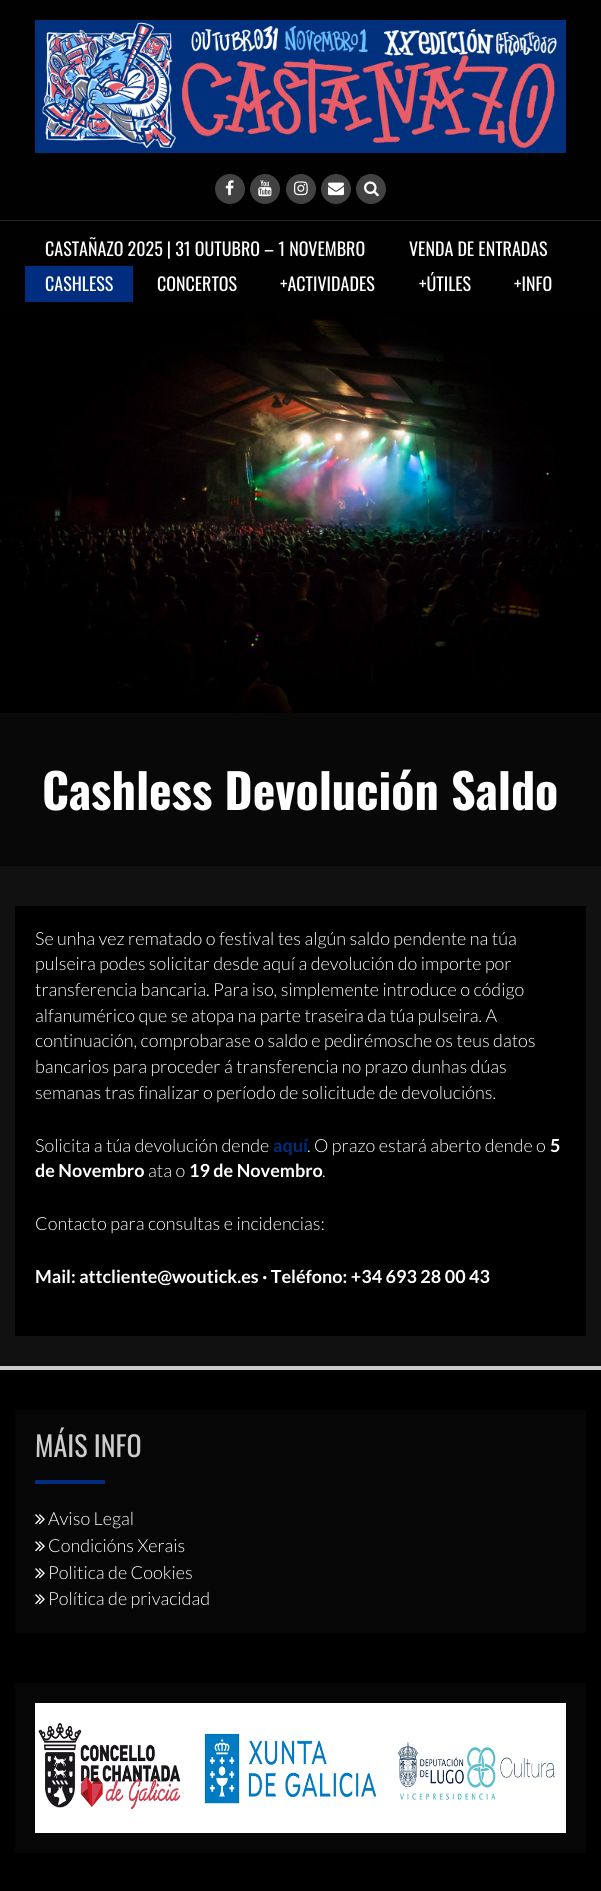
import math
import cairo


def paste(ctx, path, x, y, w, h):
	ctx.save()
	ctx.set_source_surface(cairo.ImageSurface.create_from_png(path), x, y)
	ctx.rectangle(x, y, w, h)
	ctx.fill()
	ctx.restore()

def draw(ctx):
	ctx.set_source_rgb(0.067, 0.067, 0.067)
	ctx.paint()
	ctx.set_source_rgb(0.004, 0.004, 0.004)
	ctx.rectangle(0, 0, 601, 312)
	ctx.fill()
	ctx.set_source_rgb(0.145, 0.145, 0.145)
	ctx.rectangle(0, 220, 601, 1)
	ctx.fill()
	paste(ctx, 'media/1.png', 35, 20, 531, 133)
	ctx.set_source_rgb(0.259, 0.259, 0.259)
	ctx.arc(230, 189, 15, 0, 2 * math.pi)
	ctx.fill()
	paste(ctx, 'media/2.png', 225, 180, 9, 16)
	ctx.arc(265, 189, 15, 0, 2 * math.pi)
	ctx.fill()
	paste(ctx, 'media/3.png', 258, 180, 14, 17)
	ctx.arc(301, 189, 15, 0, 2 * math.pi)
	ctx.fill()
	paste(ctx, 'media/4.png', 294, 181, 14, 15)
	ctx.arc(336, 189, 15, 0, 2 * math.pi)
	ctx.fill()
	paste(ctx, 'media/5.png', 328, 182, 16, 14)
	ctx.arc(371, 189, 15, 0, 2 * math.pi)
	ctx.fill()
	paste(ctx, 'media/6.png', 364, 181, 15, 16)
	ctx.select_font_face('Oswald')
	ctx.set_font_size(18)
	ctx.set_source_rgb(1, 1, 1)
	ctx.move_to(45, 256)
	ctx.show_text('CASTAÑAZO 2025 | 31 OUTUBRO – 1 NOVEMBRO')
	ctx.move_to(409, 256)
	ctx.show_text('VENDA DE ENTRADAS')
	ctx.set_source_rgb(0, 0.176, 0.502)
	ctx.rectangle(25, 266, 108, 36)
	ctx.fill()
	ctx.set_source_rgb(1, 1, 1)
	for x, y, s in [
		(45, 291, 'CASHLESS'),
		(157, 291, 'CONCERTOS'),
		(280, 291, '+ACTIVIDADES'),
		(419, 291, '+ÚTILES'),
		(514, 291, '+INFO'),
	]:
		ctx.move_to(x, y)
		ctx.show_text(s)
	paste(ctx, 'media/7.png', 0, 312, 601, 401)
	ctx.set_source_rgb(0.035, 0.035, 0.035)
	ctx.rectangle(0, 713, 601, 153)
	ctx.fill()
	ctx.select_font_face('Oswald', cairo.FONT_SLANT_NORMAL, cairo.FONT_WEIGHT_BOLD)
	ctx.set_font_size(48)
	ctx.set_source_rgb(1, 1, 1)
	ctx.move_to(42, 810)
	ctx.show_text('Cashless Devolución Saldo')
	ctx.set_source_rgb(0, 0, 0)
	ctx.rectangle(15, 906, 571, 430)
	ctx.fill()
	ctx.select_font_face('Lato Light')
	ctx.set_font_size(18)
	ctx.set_source_rgb(1, 1, 1)
	for x, y, s in [
		(35, 945, 'Se unha vez rematado o festival tes algún saldo pendente na túa'),
		(35, 970, 'pulseira podes solicitar desde aquí a devolución do importe por'),
		(35, 996, 'transferencia bancaria. Para iso, simplemente introduce o código'),
		(35, 1022, 'alfanumérico que se atopa na parte traseira da túa pulseira. A'),
		(35, 1047, 'continuación, comprobarase o saldo e pedirémosche os teus datos'),
		(35, 1073, 'bancarios para proceder á transferencia no prazo dunhas dúas'),
		(35, 1099, 'semanas tras finalizar o período de solicitude de devolucións.'),
		(35, 1152, 'Solicita a túa devolución dende'),
	]:
		ctx.move_to(x, y)
		ctx.show_text(s)
	ctx.select_font_face('Lato', cairo.FONT_SLANT_NORMAL, cairo.FONT_WEIGHT_BOLD)
	ctx.set_source_rgb(0, 0.176, 0.502)
	ctx.move_to(273, 1152)
	ctx.show_text('aquí')
	ctx.select_font_face('Lato Light')
	ctx.set_source_rgb(1, 1, 1)
	ctx.move_to(307, 1152)
	ctx.show_text('. O prazo estará aberto dende o')
	ctx.select_font_face('Lato', cairo.FONT_SLANT_NORMAL, cairo.FONT_WEIGHT_BOLD)
	ctx.move_to(550, 1152)
	ctx.show_text('5')
	ctx.move_to(35, 1177)
	ctx.show_text('de Novembro')
	ctx.select_font_face('Lato Light')
	ctx.move_to(148, 1177)
	ctx.show_text('ata o')
	ctx.select_font_face('Lato', cairo.FONT_SLANT_NORMAL, cairo.FONT_WEIGHT_BOLD)
	ctx.move_to(189, 1177)
	ctx.show_text('19 de Novembro')
	ctx.select_font_face('Lato Light')
	ctx.move_to(322, 1177)
	ctx.show_text('.')
	ctx.move_to(35, 1230)
	ctx.show_text('Contacto para consultas e incidencias:')
	ctx.select_font_face('Lato', cairo.FONT_SLANT_NORMAL, cairo.FONT_WEIGHT_BOLD)
	ctx.move_to(35, 1283)
	ctx.show_text('Mail: attcliente@woutick.es · Teléfono: +34 693 28 00 43')
	ctx.set_source_rgb(0, 0, 0)
	ctx.rectangle(0, 1370, 601, 521)
	ctx.fill()
	ctx.set_source_rgb(0.8, 0.8, 0.8)
	ctx.rectangle(0, 1366, 601, 4)
	ctx.fill()
	ctx.set_source_rgb(0.024, 0.024, 0.024)
	ctx.rectangle(15, 1410, 571, 223)
	ctx.fill()
	ctx.select_font_face('Oswald')
	ctx.set_font_size(28)
	ctx.set_source_rgb(0.8, 0.8, 0.8)
	ctx.move_to(35, 1457)
	ctx.show_text('MÁIS INFO')
	ctx.set_source_rgb(0, 0.176, 0.502)
	ctx.rectangle(35, 1480, 70, 4)
	ctx.fill()
	paste(ctx, 'media/8.png', 35, 1514, 10, 11)
	ctx.select_font_face('Lato Light')
	ctx.set_font_size(18)
	ctx.set_source_rgb(1, 1, 1)
	ctx.move_to(48, 1525)
	ctx.show_text('Aviso Legal')
	paste(ctx, 'media/8.png', 35, 1541, 10, 11)
	ctx.move_to(48, 1552)
	ctx.show_text('Condicións Xerais')
	paste(ctx, 'media/8.png', 35, 1568, 10, 11)
	ctx.move_to(48, 1579)
	ctx.show_text('Politica de Cookies')
	paste(ctx, 'media/8.png', 35, 1594, 10, 11)
	ctx.move_to(48, 1605)
	ctx.show_text('Política de privacidad')
	ctx.set_source_rgb(0.024, 0.024, 0.024)
	ctx.rectangle(15, 1683, 571, 170)
	ctx.fill()
	paste(ctx, 'media/9.png', 35, 1703, 531, 130)


surface = cairo.ImageSurface(cairo.FORMAT_RGB24, 601, 1891)
ctx = cairo.Context(surface)
options = cairo.FontOptions()
options.set_hint_metrics(cairo.HINT_METRICS_OFF)
options.set_hint_style(cairo.HINT_STYLE_NONE)
ctx.set_font_options(options)
ctx.set_miter_limit(4)
draw(ctx)
surface.write_to_png('image.png')
